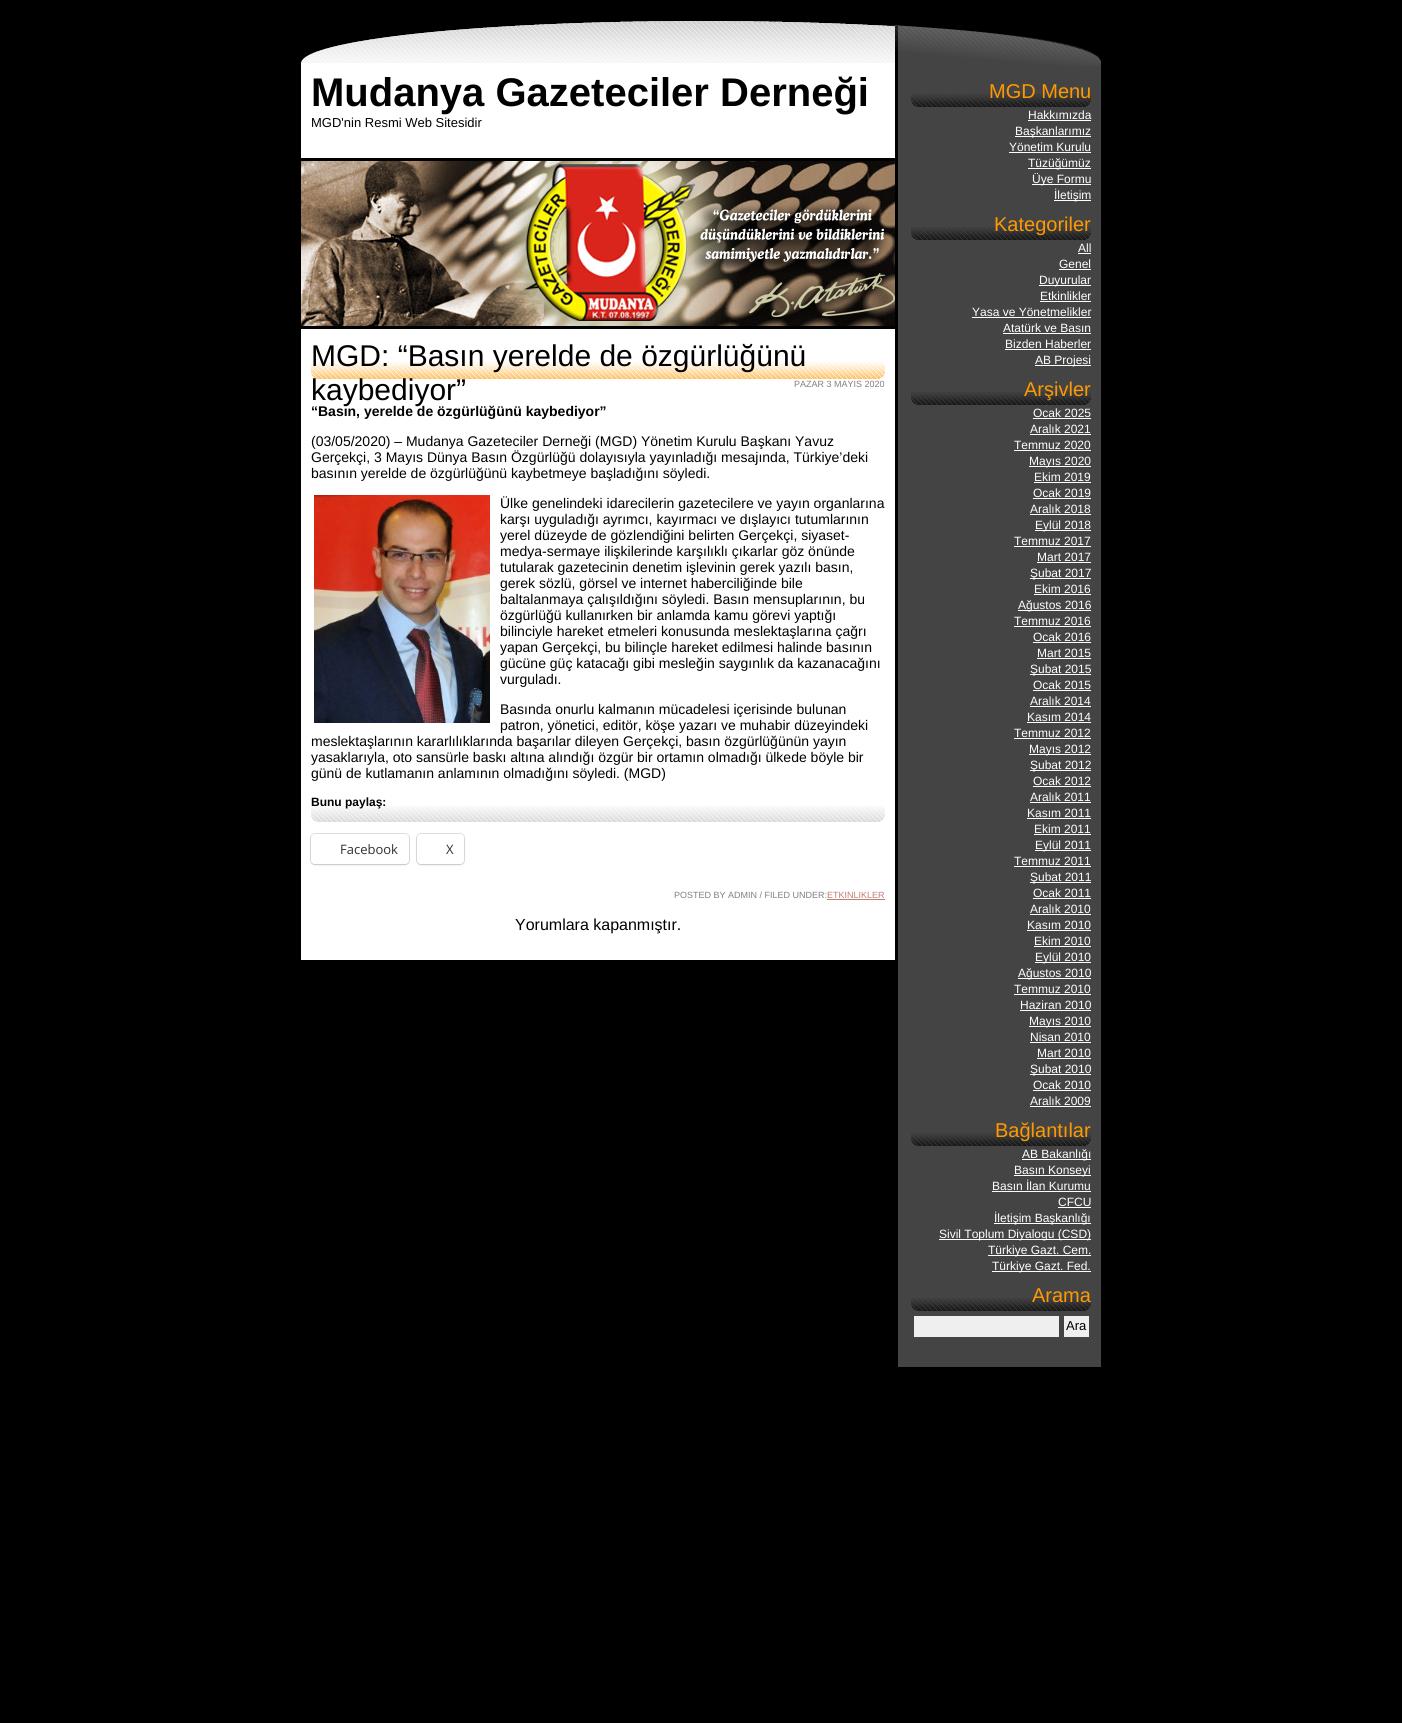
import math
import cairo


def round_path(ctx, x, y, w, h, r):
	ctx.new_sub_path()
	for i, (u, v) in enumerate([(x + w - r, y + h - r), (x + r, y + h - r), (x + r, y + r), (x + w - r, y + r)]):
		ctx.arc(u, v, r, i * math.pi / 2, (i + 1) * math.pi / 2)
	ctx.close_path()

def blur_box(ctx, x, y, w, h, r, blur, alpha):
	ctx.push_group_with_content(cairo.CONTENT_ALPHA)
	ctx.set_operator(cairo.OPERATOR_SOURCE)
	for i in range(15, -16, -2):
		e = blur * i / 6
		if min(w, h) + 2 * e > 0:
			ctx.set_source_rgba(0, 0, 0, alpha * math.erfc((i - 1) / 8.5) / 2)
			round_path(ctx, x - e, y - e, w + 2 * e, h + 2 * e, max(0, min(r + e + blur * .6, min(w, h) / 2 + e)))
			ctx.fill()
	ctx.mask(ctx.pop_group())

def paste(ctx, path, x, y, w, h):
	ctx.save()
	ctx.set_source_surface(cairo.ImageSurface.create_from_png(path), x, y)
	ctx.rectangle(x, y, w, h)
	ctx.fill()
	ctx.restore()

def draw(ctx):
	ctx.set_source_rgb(0, 0, 0)
	ctx.paint()
	paste(ctx, 'media/1.png', 301, 66, 800, 4)
	paste(ctx, 'media/2.png', 301, 20, 800, 46)
	ctx.set_source_rgb(1, 1, 1)
	ctx.rectangle(301, 70, 594, 890)
	ctx.fill()
	ctx.select_font_face('Liberation Sans', cairo.FONT_SLANT_NORMAL, cairo.FONT_WEIGHT_BOLD)
	ctx.set_font_size(40)
	ctx.set_source_rgb(0, 0, 0)
	ctx.move_to(311, 106)
	ctx.show_text('Mudanya Gazeteciler Derneği')
	ctx.select_font_face('Liberation Sans')
	ctx.set_font_size(13)
	ctx.move_to(311, 127)
	ctx.show_text('MGD\'nin Resmi Web Sitesidir')
	paste(ctx, 'media/3.png', 301, 161, 594, 165)
	ctx.rectangle(301, 158, 594, 3)
	ctx.fill()
	ctx.rectangle(301, 326, 594, 3)
	ctx.fill()
	paste(ctx, 'media/4.png', 311, 361, 574, 18)
	ctx.set_font_size(30)
	ctx.move_to(311, 366)
	ctx.show_text('MGD: “Basın yerelde de özgürlüğünü')
	ctx.move_to(311, 400)
	ctx.show_text('kaybediyor”')
	ctx.set_font_size(9)
	ctx.set_source_rgb(0.502, 0.502, 0.502)
	ctx.move_to(794, 387)
	ctx.show_text('PAZAR 3 MAYIS 2020')
	ctx.select_font_face('Liberation Sans', cairo.FONT_SLANT_NORMAL, cairo.FONT_WEIGHT_BOLD)
	ctx.set_font_size(14)
	ctx.set_source_rgb(0, 0, 0)
	ctx.move_to(311, 416)
	ctx.show_text('“Basın, yerelde de özgürlüğünü kaybediyor”')
	ctx.select_font_face('Liberation Sans')
	for x, y, s in [
		(311, 446, '(03/05/2020) – Mudanya Gazeteciler Derneği (MGD) Yönetim Kurulu Başkanı Yavuz'),
		(311, 462, 'Gerçekçi, 3 Mayıs Dünya Basın Özgürlüğü dolayısıyla yayınladığı mesajında, Türkiye’deki'),
		(311, 478, 'basının yerelde de özgürlüğünü kaybetmeye başladığını söyledi.'),
	]:
		ctx.move_to(x, y)
		ctx.show_text(s)
	paste(ctx, 'media/5.png', 314, 495, 176, 228)
	for x, y, s in [
		(500, 508, 'Ülke genelindeki idarecilerin gazetecilere ve yayın organlarına'),
		(500, 524, 'karşı uyguladığı ayrımcı, kayırmacı ve dışlayıcı tutumlarının'),
		(500, 540, 'yerel düzeyde de gözlendiğini belirten Gerçekçi, siyaset-'),
		(500, 556, 'medya-sermaye ilişkilerinde karşılıklı çıkarlar göz önünde'),
		(500, 572, 'tutularak gazetecinin denetim işlevinin gerek yazılı basın,'),
		(500, 588, 'gerek sözlü, görsel ve internet haberciliğinde bile'),
		(500, 604, 'baltalanmaya çalışıldığını söyledi. Basın mensuplarının, bu'),
		(500, 620, 'özgürlüğü kullanırken bir anlamda kamu görevi yaptığı'),
		(500, 636, 'bilinciyle hareket etmeleri konusunda meslektaşlarına çağrı'),
		(500, 652, 'yapan Gerçekçi, bu bilinçle hareket edilmesi halinde basının'),
		(500, 668, 'gücüne güç katacağı gibi mesleğin saygınlık da kazanacağını'),
		(500, 684, 'vurguladı.'),
		(500, 714, 'Basında onurlu kalmanın mücadelesi içerisinde bulunan'),
		(500, 730, 'patron, yönetici, editör, köşe yazarı ve muhabir düzeyindeki'),
		(311, 746, 'meslektaşlarının kararlılıklarında başarılar dileyen Gerçekçi, basın özgürlüğünün yayın'),
		(311, 762, 'yasaklarıyla, oto sansürle baskı altına alındığı özgür bir ortamın olmadığı ülkede böyle bir'),
		(311, 778, 'günü de kutlamanın anlamının olmadığını söyledi. (MGD)'),
	]:
		ctx.move_to(x, y)
		ctx.show_text(s)
	paste(ctx, 'media/6.png', 311, 806, 574, 16)
	ctx.select_font_face('Liberation Sans', cairo.FONT_SLANT_NORMAL, cairo.FONT_WEIGHT_BOLD)
	ctx.set_font_size(12)
	ctx.move_to(311, 806)
	ctx.show_text('Bunu paylaş:')
	round_path(ctx, 310.5, 833.5, 99, 31, 4.5)
	ctx.set_source_rgb(0.878, 0.878, 0.878)
	ctx.set_line_width(1)
	ctx.stroke()
	ctx.set_source_rgb(0, 0, 0)
	blur_box(ctx, 311, 835, 98, 30, 4, 1, 0.12)
	ctx.set_source_rgb(1, 1, 1)
	round_path(ctx, 311, 834, 98, 30, 4)
	ctx.fill()
	ctx.select_font_face('Open Sans')
	ctx.set_font_size(13)
	ctx.set_source_rgb(0.173, 0.2, 0.22)
	ctx.move_to(340, 854)
	ctx.show_text('Facebook')
	round_path(ctx, 416.5, 833.5, 48, 31, 4.5)
	ctx.set_source_rgb(0.878, 0.878, 0.878)
	ctx.stroke()
	ctx.set_source_rgb(0, 0, 0)
	blur_box(ctx, 417, 835, 47, 30, 4, 1, 0.12)
	ctx.set_source_rgb(1, 1, 1)
	round_path(ctx, 417, 834, 47, 30, 4)
	ctx.fill()
	ctx.set_source_rgb(0.173, 0.2, 0.22)
	ctx.move_to(446, 854)
	ctx.show_text('X')
	ctx.select_font_face('Liberation Sans')
	ctx.set_font_size(9)
	ctx.set_source_rgb(0.502, 0.502, 0.502)
	ctx.move_to(674, 898)
	ctx.show_text('POSTED BY ADMIN / FILED UNDER:')
	ctx.set_source_rgb(0.757, 0.482, 0.443)
	ctx.move_to(827, 898)
	ctx.show_text('ETKINLIKLER')
	ctx.rectangle(827, 899, 58, 1)
	ctx.fill()
	ctx.set_font_size(16)
	ctx.set_source_rgb(0, 0, 0)
	ctx.move_to(515, 930)
	ctx.show_text('Yorumlara kapanmıştır.')
	ctx.set_source_rgb(0.267, 0.267, 0.267)
	ctx.rectangle(898, 70, 203, 1297)
	ctx.fill()
	paste(ctx, 'media/7.png', 911, 94, 180, 13)
	ctx.set_font_size(20)
	ctx.set_source_rgb(1, 0.6, 0)
	ctx.move_to(989, 98)
	ctx.show_text('MGD Menu')
	ctx.set_font_size(12)
	ctx.set_source_rgb(1, 1, 1)
	ctx.move_to(1028, 119)
	ctx.show_text('Hakkımızda')
	ctx.rectangle(1028, 120, 63, 1)
	ctx.fill()
	ctx.rectangle(1015, 136, 76, 1)
	ctx.fill()
	ctx.move_to(1015, 135)
	ctx.show_text('Başkanlarımız')
	ctx.move_to(1009, 151)
	ctx.show_text('Yönetim Kurulu')
	ctx.rectangle(1009, 152, 82, 1)
	ctx.fill()
	ctx.rectangle(1028, 168, 63, 1)
	ctx.fill()
	ctx.move_to(1028, 167)
	ctx.show_text('Tüzüğümüz')
	ctx.rectangle(1032, 184, 59, 1)
	ctx.fill()
	ctx.move_to(1032, 183)
	ctx.show_text('Üye Formu')
	ctx.rectangle(1054, 200, 37, 1)
	ctx.fill()
	ctx.move_to(1054, 199)
	ctx.show_text('İletişim')
	paste(ctx, 'media/7.png', 911, 227, 180, 13)
	ctx.set_font_size(20)
	ctx.set_source_rgb(1, 0.6, 0)
	ctx.move_to(994, 231)
	ctx.show_text('Kategoriler')
	ctx.set_font_size(12)
	ctx.set_source_rgb(1, 1, 1)
	ctx.move_to(1078, 252)
	ctx.show_text('All')
	ctx.rectangle(1078, 253, 13, 1)
	ctx.fill()
	ctx.move_to(1059, 268)
	ctx.show_text('Genel')
	ctx.rectangle(1059, 269, 32, 1)
	ctx.fill()
	ctx.rectangle(1039, 285, 52, 1)
	ctx.fill()
	ctx.move_to(1039, 284)
	ctx.show_text('Duyurular')
	ctx.move_to(1040, 300)
	ctx.show_text('Etkinlikler')
	ctx.rectangle(1040, 301, 51, 1)
	ctx.fill()
	ctx.move_to(972, 316)
	ctx.show_text('Yasa ve Yönetmelikler')
	ctx.rectangle(972, 317, 119, 1)
	ctx.fill()
	ctx.move_to(1003, 332)
	ctx.show_text('Atatürk ve Basın')
	ctx.rectangle(1003, 333, 88, 1)
	ctx.fill()
	ctx.move_to(1005, 348)
	ctx.show_text('Bizden Haberler')
	ctx.rectangle(1005, 349, 86, 1)
	ctx.fill()
	ctx.rectangle(1035, 365, 56, 1)
	ctx.fill()
	ctx.move_to(1035, 364)
	ctx.show_text('AB Projesi')
	paste(ctx, 'media/7.png', 911, 392, 180, 13)
	ctx.set_font_size(20)
	ctx.set_source_rgb(1, 0.6, 0)
	ctx.move_to(1024, 396)
	ctx.show_text('Arşivler')
	ctx.set_font_size(12)
	ctx.set_source_rgb(1, 1, 1)
	ctx.move_to(1033, 417)
	ctx.show_text('Ocak 2025')
	ctx.rectangle(1033, 418, 58, 1)
	ctx.fill()
	ctx.move_to(1030, 433)
	ctx.show_text('Aralık 2021')
	ctx.rectangle(1030, 434, 61, 1)
	ctx.fill()
	ctx.move_to(1014, 449)
	ctx.show_text('Temmuz 2020')
	ctx.rectangle(1014, 450, 77, 1)
	ctx.fill()
	ctx.rectangle(1029, 466, 62, 1)
	ctx.fill()
	ctx.move_to(1029, 465)
	ctx.show_text('Mayıs 2020')
	ctx.move_to(1034, 481)
	ctx.show_text('Ekim 2019')
	ctx.rectangle(1034, 482, 57, 1)
	ctx.fill()
	ctx.move_to(1033, 497)
	ctx.show_text('Ocak 2019')
	ctx.rectangle(1033, 498, 58, 1)
	ctx.fill()
	ctx.move_to(1030, 513)
	ctx.show_text('Aralık 2018')
	ctx.rectangle(1030, 514, 61, 1)
	ctx.fill()
	ctx.rectangle(1035, 530, 56, 1)
	ctx.fill()
	ctx.move_to(1035, 529)
	ctx.show_text('Eylül 2018')
	ctx.move_to(1014, 545)
	ctx.show_text('Temmuz 2017')
	ctx.rectangle(1014, 546, 77, 1)
	ctx.fill()
	ctx.move_to(1037, 561)
	ctx.show_text('Mart 2017')
	ctx.rectangle(1037, 562, 54, 1)
	ctx.fill()
	ctx.rectangle(1030, 578, 61, 1)
	ctx.fill()
	ctx.move_to(1030, 577)
	ctx.show_text('Şubat 2017')
	ctx.move_to(1034, 593)
	ctx.show_text('Ekim 2016')
	ctx.rectangle(1034, 594, 57, 1)
	ctx.fill()
	ctx.rectangle(1018, 610, 73, 1)
	ctx.fill()
	ctx.move_to(1018, 609)
	ctx.show_text('Ağustos 2016')
	ctx.move_to(1014, 625)
	ctx.show_text('Temmuz 2016')
	ctx.rectangle(1014, 626, 77, 1)
	ctx.fill()
	ctx.move_to(1033, 641)
	ctx.show_text('Ocak 2016')
	ctx.rectangle(1033, 642, 58, 1)
	ctx.fill()
	ctx.move_to(1037, 657)
	ctx.show_text('Mart 2015')
	ctx.rectangle(1037, 658, 54, 1)
	ctx.fill()
	ctx.rectangle(1030, 674, 61, 1)
	ctx.fill()
	ctx.move_to(1030, 673)
	ctx.show_text('Şubat 2015')
	ctx.move_to(1033, 689)
	ctx.show_text('Ocak 2015')
	ctx.rectangle(1033, 690, 58, 1)
	ctx.fill()
	ctx.move_to(1030, 705)
	ctx.show_text('Aralık 2014')
	ctx.rectangle(1030, 706, 61, 1)
	ctx.fill()
	ctx.move_to(1027, 721)
	ctx.show_text('Kasım 2014')
	ctx.rectangle(1027, 722, 64, 1)
	ctx.fill()
	ctx.move_to(1014, 737)
	ctx.show_text('Temmuz 2012')
	ctx.rectangle(1014, 738, 77, 1)
	ctx.fill()
	ctx.rectangle(1029, 754, 62, 1)
	ctx.fill()
	ctx.move_to(1029, 753)
	ctx.show_text('Mayıs 2012')
	ctx.rectangle(1030, 770, 61, 1)
	ctx.fill()
	ctx.move_to(1030, 769)
	ctx.show_text('Şubat 2012')
	ctx.move_to(1033, 785)
	ctx.show_text('Ocak 2012')
	ctx.rectangle(1033, 786, 58, 1)
	ctx.fill()
	ctx.move_to(1030, 801)
	ctx.show_text('Aralık 2011')
	ctx.rectangle(1030, 802, 61, 1)
	ctx.fill()
	ctx.move_to(1027, 817)
	ctx.show_text('Kasım 2011')
	ctx.rectangle(1027, 818, 64, 1)
	ctx.fill()
	ctx.move_to(1034, 833)
	ctx.show_text('Ekim 2011')
	ctx.rectangle(1034, 834, 57, 1)
	ctx.fill()
	ctx.rectangle(1035, 850, 56, 1)
	ctx.fill()
	ctx.move_to(1035, 849)
	ctx.show_text('Eylül 2011')
	ctx.move_to(1014, 865)
	ctx.show_text('Temmuz 2011')
	ctx.rectangle(1014, 866, 77, 1)
	ctx.fill()
	ctx.rectangle(1030, 882, 61, 1)
	ctx.fill()
	ctx.move_to(1030, 881)
	ctx.show_text('Şubat 2011')
	ctx.move_to(1033, 897)
	ctx.show_text('Ocak 2011')
	ctx.rectangle(1033, 898, 58, 1)
	ctx.fill()
	ctx.move_to(1030, 913)
	ctx.show_text('Aralık 2010')
	ctx.rectangle(1030, 914, 61, 1)
	ctx.fill()
	ctx.move_to(1027, 929)
	ctx.show_text('Kasım 2010')
	ctx.rectangle(1027, 930, 64, 1)
	ctx.fill()
	ctx.move_to(1034, 945)
	ctx.show_text('Ekim 2010')
	ctx.rectangle(1034, 946, 57, 1)
	ctx.fill()
	ctx.rectangle(1035, 962, 56, 1)
	ctx.fill()
	ctx.move_to(1035, 961)
	ctx.show_text('Eylül 2010')
	ctx.rectangle(1018, 978, 73, 1)
	ctx.fill()
	ctx.move_to(1018, 977)
	ctx.show_text('Ağustos 2010')
	ctx.move_to(1014, 993)
	ctx.show_text('Temmuz 2010')
	ctx.rectangle(1014, 994, 77, 1)
	ctx.fill()
	ctx.move_to(1020, 1009)
	ctx.show_text('Haziran 2010')
	ctx.rectangle(1020, 1010, 71, 1)
	ctx.fill()
	ctx.rectangle(1029, 1026, 62, 1)
	ctx.fill()
	ctx.move_to(1029, 1025)
	ctx.show_text('Mayıs 2010')
	ctx.move_to(1030, 1041)
	ctx.show_text('Nisan 2010')
	ctx.rectangle(1030, 1042, 61, 1)
	ctx.fill()
	ctx.move_to(1037, 1057)
	ctx.show_text('Mart 2010')
	ctx.rectangle(1037, 1058, 54, 1)
	ctx.fill()
	ctx.rectangle(1030, 1074, 61, 1)
	ctx.fill()
	ctx.move_to(1030, 1073)
	ctx.show_text('Şubat 2010')
	ctx.move_to(1033, 1089)
	ctx.show_text('Ocak 2010')
	ctx.rectangle(1033, 1090, 58, 1)
	ctx.fill()
	ctx.move_to(1030, 1105)
	ctx.show_text('Aralık 2009')
	ctx.rectangle(1030, 1106, 61, 1)
	ctx.fill()
	paste(ctx, 'media/7.png', 911, 1133, 180, 13)
	ctx.set_font_size(20)
	ctx.set_source_rgb(1, 0.6, 0)
	ctx.move_to(995, 1137)
	ctx.show_text('Bağlantılar')
	ctx.set_source_rgb(1, 1, 1)
	ctx.rectangle(1022, 1159, 69, 1)
	ctx.fill()
	ctx.set_font_size(12)
	ctx.move_to(1022, 1158)
	ctx.show_text('AB Bakanlığı')
	ctx.rectangle(1014, 1175, 77, 1)
	ctx.fill()
	ctx.move_to(1014, 1174)
	ctx.show_text('Basın Konseyi')
	ctx.move_to(992, 1190)
	ctx.show_text('Basın İlan Kurumu')
	ctx.rectangle(992, 1191, 99, 1)
	ctx.fill()
	ctx.move_to(1058, 1206)
	ctx.show_text('CFCU')
	ctx.rectangle(1058, 1207, 33, 1)
	ctx.fill()
	ctx.rectangle(994, 1223, 97, 1)
	ctx.fill()
	ctx.move_to(994, 1222)
	ctx.show_text('İletişim Başkanlığı')
	ctx.rectangle(939, 1239, 152, 1)
	ctx.fill()
	ctx.move_to(939, 1238)
	ctx.show_text('Sivil Toplum Diyalogu (CSD)')
	ctx.rectangle(988, 1255, 103, 1)
	ctx.fill()
	ctx.move_to(988, 1254)
	ctx.show_text('Türkiye Gazt. Cem.')
	ctx.rectangle(992, 1271, 99, 1)
	ctx.fill()
	ctx.move_to(992, 1270)
	ctx.show_text('Türkiye Gazt. Fed.')
	paste(ctx, 'media/7.png', 911, 1298, 180, 13)
	ctx.set_font_size(20)
	ctx.set_source_rgb(1, 0.6, 0)
	ctx.move_to(1032, 1302)
	ctx.show_text('Arama')
	ctx.set_source_rgb(0.937, 0.937, 0.937)
	ctx.rectangle(914, 1316, 145, 21)
	ctx.fill()
	ctx.rectangle(1064, 1316, 25, 21)
	ctx.fill()
	ctx.set_font_size(13)
	ctx.set_source_rgb(0, 0, 0)
	ctx.move_to(1066, 1330)
	ctx.show_text('Ara')


surface = cairo.ImageSurface(cairo.FORMAT_RGB24, 1402, 1723)
ctx = cairo.Context(surface)
options = cairo.FontOptions()
options.set_hint_metrics(cairo.HINT_METRICS_OFF)
options.set_hint_style(cairo.HINT_STYLE_NONE)
ctx.set_font_options(options)
ctx.set_miter_limit(4)
draw(ctx)
surface.write_to_png('image.png')
